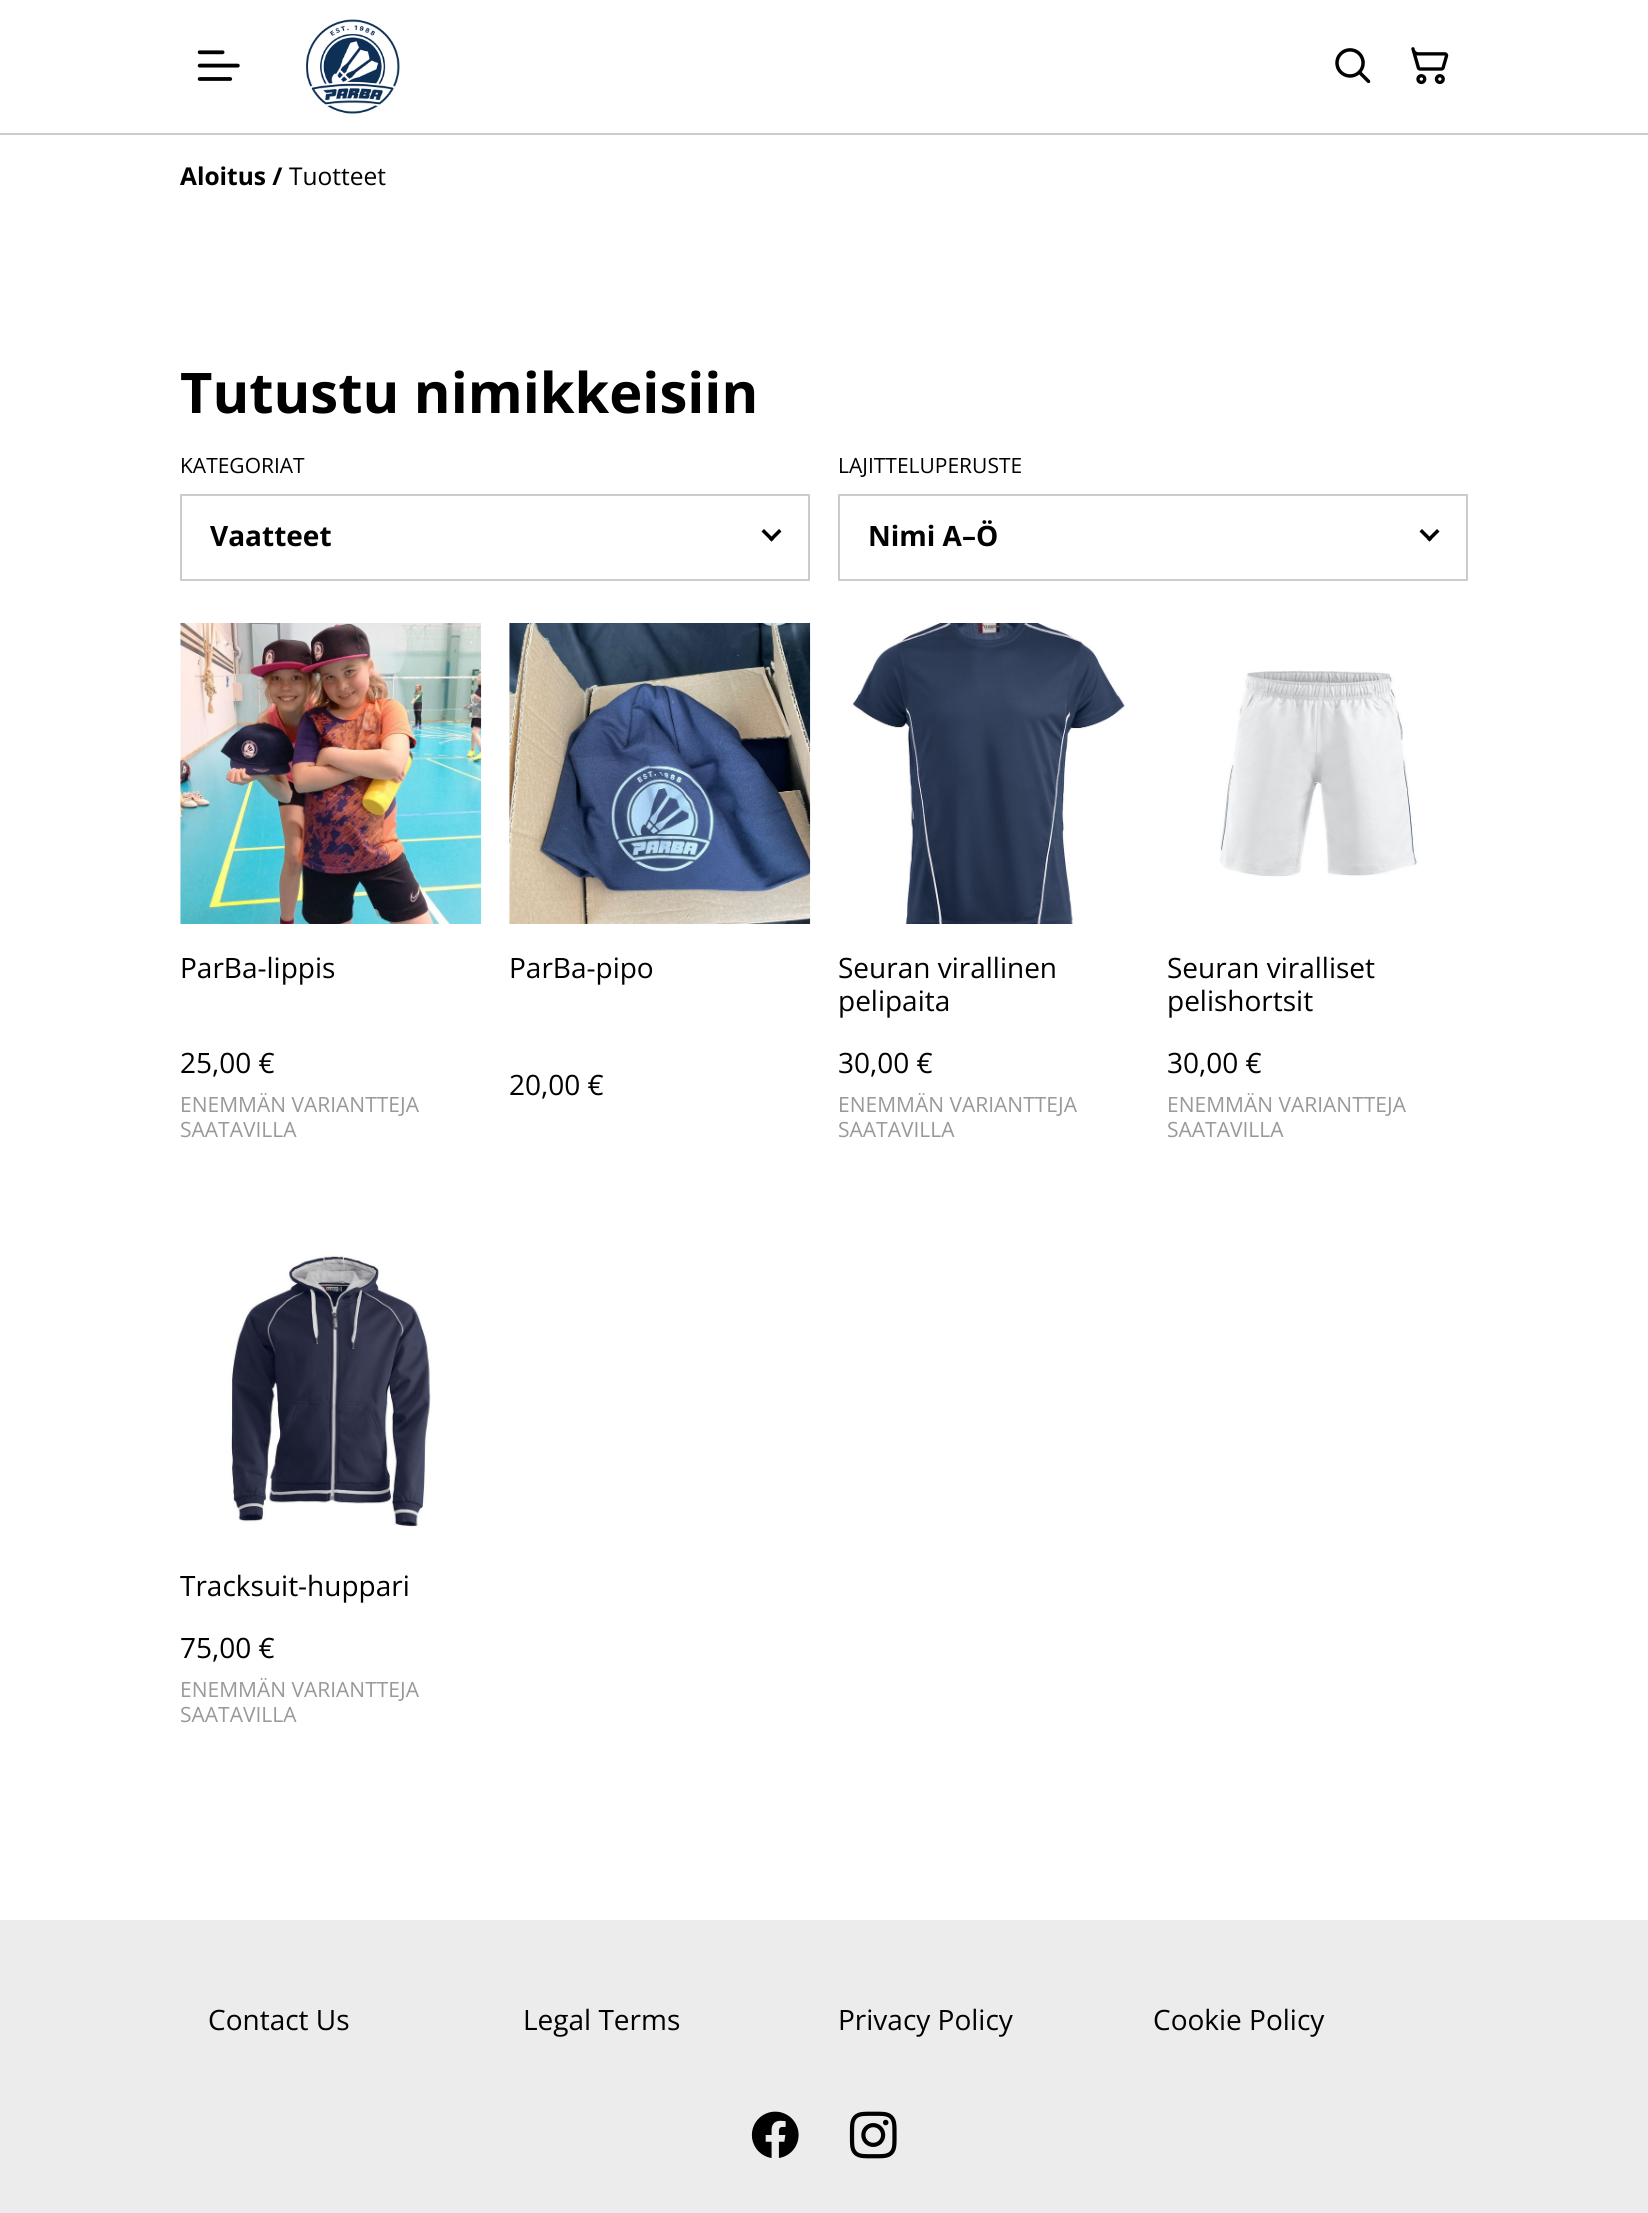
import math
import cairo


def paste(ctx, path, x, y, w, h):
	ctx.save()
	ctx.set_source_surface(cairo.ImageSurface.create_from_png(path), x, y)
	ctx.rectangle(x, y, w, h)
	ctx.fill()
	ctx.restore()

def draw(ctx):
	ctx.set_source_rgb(1, 1, 1)
	ctx.paint()
	ctx.set_source_rgb(0.8, 0.8, 0.8)
	ctx.rectangle(0, 133, 1648, 2)
	ctx.fill()
	paste(ctx, 'media/1.png', 197, 50, 43, 31)
	paste(ctx, 'media/2.png', 306, 19, 94, 95)
	paste(ctx, 'media/3.png', 1335, 48, 36, 36)
	paste(ctx, 'media/4.png', 1411, 47, 38, 38)
	ctx.select_font_face('Open Sans', cairo.FONT_SLANT_NORMAL, cairo.FONT_WEIGHT_BOLD)
	ctx.set_font_size(24.5)
	ctx.set_source_rgb(0, 0, 0)
	ctx.move_to(180, 185)
	ctx.show_text('Aloitus /')
	ctx.select_font_face('Open Sans')
	ctx.move_to(289, 185)
	ctx.show_text('Tuotteet')
	ctx.select_font_face('Open Sans', cairo.FONT_SLANT_NORMAL, cairo.FONT_WEIGHT_BOLD)
	ctx.set_font_size(56)
	ctx.move_to(180, 413)
	ctx.show_text('Tutustu nimikkeisiin')
	ctx.select_font_face('Open Sans')
	ctx.set_font_size(21)
	ctx.move_to(180, 473)
	ctx.show_text('KATEGORIAT')
	ctx.rectangle(181, 495, 628, 85)
	ctx.set_source_rgb(0.8, 0.8, 0.8)
	ctx.stroke()
	ctx.select_font_face('Open Sans', cairo.FONT_SLANT_NORMAL, cairo.FONT_WEIGHT_BOLD)
	ctx.set_font_size(28)
	ctx.set_source_rgb(0, 0, 0)
	ctx.move_to(210, 546)
	ctx.show_text('Vaatteet')
	ctx.new_path()
	ctx.move_to(779, 529)
	ctx.line_to(781.5, 531.5)
	ctx.line_to(771.5, 541.5)
	ctx.line_to(769, 539)
	ctx.close_path()
	ctx.fill()
	ctx.new_path()
	ctx.move_to(764, 529)
	ctx.line_to(774, 539)
	ctx.line_to(771.5, 541.5)
	ctx.line_to(761.5, 531.5)
	ctx.close_path()
	ctx.fill()
	ctx.select_font_face('Open Sans')
	ctx.set_font_size(21)
	ctx.move_to(838, 473)
	ctx.show_text('LAJITTELUPERUSTE')
	ctx.rectangle(839, 495, 628, 85)
	ctx.set_source_rgb(0.8, 0.8, 0.8)
	ctx.stroke()
	ctx.select_font_face('Open Sans', cairo.FONT_SLANT_NORMAL, cairo.FONT_WEIGHT_BOLD)
	ctx.set_font_size(28)
	ctx.set_source_rgb(0, 0, 0)
	ctx.move_to(868, 546)
	ctx.show_text('Nimi A–Ö')
	ctx.new_path()
	ctx.move_to(1437, 529)
	ctx.line_to(1439.5, 531.5)
	ctx.line_to(1429.5, 541.5)
	ctx.line_to(1427, 539)
	ctx.close_path()
	ctx.fill()
	ctx.new_path()
	ctx.move_to(1422, 529)
	ctx.line_to(1432, 539)
	ctx.line_to(1429.5, 541.5)
	ctx.line_to(1419.5, 531.5)
	ctx.close_path()
	ctx.fill()
	paste(ctx, 'media/5.png', 180, 623, 302, 301)
	ctx.select_font_face('Open Sans')
	ctx.move_to(180, 978)
	ctx.show_text('ParBa-lippis')
	ctx.move_to(180, 1073)
	ctx.show_text('25,00 €')
	ctx.set_font_size(21)
	ctx.set_source_rgb(0.6, 0.6, 0.6)
	ctx.move_to(180, 1112)
	ctx.show_text('ENEMMÄN VARIANTTEJA')
	ctx.move_to(180, 1137)
	ctx.show_text('SAATAVILLA')
	paste(ctx, 'media/6.png', 509, 623, 302, 301)
	ctx.set_font_size(28)
	ctx.set_source_rgb(0, 0, 0)
	ctx.move_to(509, 978)
	ctx.show_text('ParBa-pipo')
	ctx.move_to(509, 1095)
	ctx.show_text('20,00 €')
	paste(ctx, 'media/7.png', 852, 623, 273, 301)
	for x, y, s in [
		(838, 978, 'Seuran virallinen'),
		(838, 1011, 'pelipaita'),
		(838, 1073, '30,00 €'),
	]:
		ctx.move_to(x, y)
		ctx.show_text(s)
	ctx.set_font_size(21)
	ctx.set_source_rgb(0.6, 0.6, 0.6)
	ctx.move_to(838, 1112)
	ctx.show_text('ENEMMÄN VARIANTTEJA')
	ctx.move_to(838, 1137)
	ctx.show_text('SAATAVILLA')
	paste(ctx, 'media/8.png', 1219, 670, 199, 207)
	ctx.set_font_size(28)
	ctx.set_source_rgb(0, 0, 0)
	for x, y, s in [
		(1167, 978, 'Seuran viralliset'),
		(1167, 1011, 'pelishortsit'),
		(1167, 1073, '30,00 €'),
	]:
		ctx.move_to(x, y)
		ctx.show_text(s)
	ctx.set_font_size(21)
	ctx.set_source_rgb(0.6, 0.6, 0.6)
	ctx.move_to(1167, 1112)
	ctx.show_text('ENEMMÄN VARIANTTEJA')
	ctx.move_to(1167, 1137)
	ctx.show_text('SAATAVILLA')
	paste(ctx, 'media/9.png', 228, 1255, 203, 273)
	ctx.set_font_size(28)
	ctx.set_source_rgb(0, 0, 0)
	ctx.move_to(180, 1596)
	ctx.show_text('Tracksuit-huppari')
	ctx.move_to(180, 1658)
	ctx.show_text('75,00 €')
	ctx.set_font_size(21)
	ctx.set_source_rgb(0.6, 0.6, 0.6)
	ctx.move_to(180, 1697)
	ctx.show_text('ENEMMÄN VARIANTTEJA')
	ctx.move_to(180, 1722)
	ctx.show_text('SAATAVILLA')
	ctx.set_source_rgb(0.925, 0.925, 0.925)
	ctx.rectangle(0, 1920, 1648, 293)
	ctx.fill()
	ctx.set_font_size(28)
	ctx.set_source_rgb(0, 0, 0)
	for x, y, s in [
		(208, 2030, 'Contact Us'),
		(523, 2030, 'Legal Terms'),
		(838, 2030, 'Privacy Policy'),
		(1153, 2030, 'Cookie Policy'),
	]:
		ctx.move_to(x, y)
		ctx.show_text(s)
	paste(ctx, 'media/10.png', 751, 2111, 48, 47)
	paste(ctx, 'media/11.png', 849, 2111, 48, 48)


surface = cairo.ImageSurface(cairo.FORMAT_RGB24, 1648, 2213)
ctx = cairo.Context(surface)
options = cairo.FontOptions()
options.set_hint_metrics(cairo.HINT_METRICS_OFF)
options.set_hint_style(cairo.HINT_STYLE_NONE)
ctx.set_font_options(options)
ctx.set_miter_limit(4)
draw(ctx)
surface.write_to_png('image.png')
